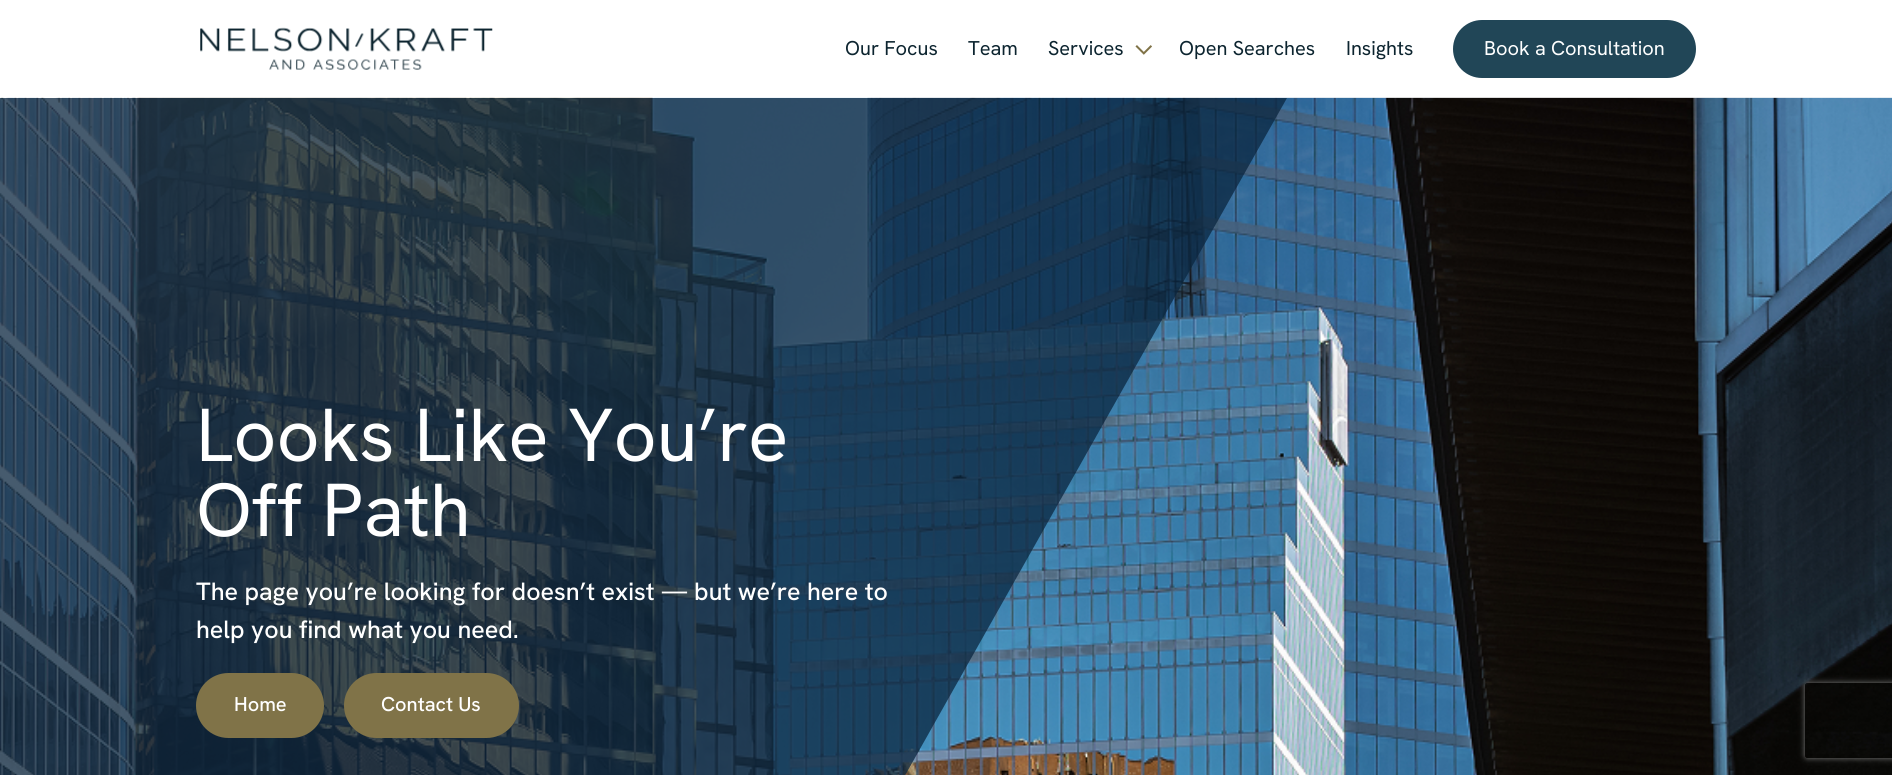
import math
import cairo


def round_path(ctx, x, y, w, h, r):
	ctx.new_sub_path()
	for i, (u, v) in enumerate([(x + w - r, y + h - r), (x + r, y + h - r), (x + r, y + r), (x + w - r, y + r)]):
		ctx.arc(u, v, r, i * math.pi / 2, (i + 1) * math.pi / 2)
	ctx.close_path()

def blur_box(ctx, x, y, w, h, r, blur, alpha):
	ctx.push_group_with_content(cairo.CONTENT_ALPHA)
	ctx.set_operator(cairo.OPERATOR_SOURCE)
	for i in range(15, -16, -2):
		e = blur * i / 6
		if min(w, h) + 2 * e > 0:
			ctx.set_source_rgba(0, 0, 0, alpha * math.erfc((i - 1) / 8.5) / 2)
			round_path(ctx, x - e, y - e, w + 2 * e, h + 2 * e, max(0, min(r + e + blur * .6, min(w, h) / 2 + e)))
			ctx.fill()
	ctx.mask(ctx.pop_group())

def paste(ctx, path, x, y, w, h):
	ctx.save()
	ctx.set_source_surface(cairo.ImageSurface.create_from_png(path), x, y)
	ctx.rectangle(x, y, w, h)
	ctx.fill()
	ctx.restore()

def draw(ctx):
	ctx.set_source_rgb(1, 1, 1)
	ctx.paint()
	paste(ctx, 'media/3.png', 0, 97, 1892, 678)
	ctx.set_source_rgba(1, 1, 1, 0.7)
	ctx.rectangle(0, 97, 1892, 1)
	ctx.fill()
	paste(ctx, 'media/1.png', 200, 27, 293, 43)
	ctx.select_font_face('Hanken Grotesk')
	ctx.set_font_size(20)
	ctx.set_source_rgb(0.047, 0.141, 0.184)
	for x, y, s in [
		(845, 55, 'Our Focus'),
		(968, 55, 'Team'),
		(1048, 55, 'Services'),
	]:
		ctx.move_to(x, y)
		ctx.show_text(s)
	paste(ctx, 'media/2.png', 1135, 45, 17, 10)
	ctx.move_to(1179, 55)
	ctx.show_text('Open Searches')
	ctx.move_to(1346, 55)
	ctx.show_text('Insights')
	ctx.set_source_rgb(0.129, 0.275, 0.341)
	round_path(ctx, 1453, 20, 243, 58, 29)
	ctx.fill()
	ctx.set_source_rgb(1, 1, 1)
	ctx.move_to(1484, 55)
	ctx.show_text('Book a Consultation')
	ctx.set_source_rgba(0.039, 0.149, 0.247, 0.75)
	ctx.new_path()
	ctx.move_to(0, 98)
	ctx.line_to(0, 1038)
	ctx.line_to(757, 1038)
	ctx.line_to(1287, 98)
	ctx.close_path()
	ctx.fill()
	ctx.set_font_size(75)
	ctx.set_source_rgb(1, 1, 1)
	ctx.move_to(196, 461)
	ctx.show_text('Looks Like You’re')
	ctx.move_to(196, 536)
	ctx.show_text('Off Path')
	ctx.select_font_face('Hanken Grotesk Medium')
	ctx.set_font_size(25)
	ctx.move_to(196, 600)
	ctx.show_text('The page you’re looking for doesn’t exist — but we’re here to')
	ctx.move_to(196, 638)
	ctx.show_text('help you find what you need.')
	ctx.set_source_rgb(0.502, 0.451, 0.282)
	round_path(ctx, 196, 673, 128, 65, 32.5)
	ctx.fill()
	ctx.set_font_size(20)
	ctx.set_source_rgb(1, 1, 1)
	ctx.move_to(234, 711)
	ctx.show_text('Home')
	ctx.set_source_rgb(0.502, 0.451, 0.282)
	round_path(ctx, 344, 673, 175, 65, 32.5)
	ctx.fill()
	ctx.set_source_rgb(1, 1, 1)
	ctx.move_to(381, 711)
	ctx.show_text('Contact Us')
	ctx.save()
	ctx.set_fill_rule(cairo.FILL_RULE_EVEN_ODD)
	ctx.new_path()
	ctx.move_to(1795, 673)
	ctx.line_to(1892, 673)
	ctx.line_to(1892, 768)
	ctx.line_to(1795, 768)
	ctx.close_path()
	ctx.move_to(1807.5, 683)
	ctx.line_to(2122.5, 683)
	ctx.curve_to(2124, 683, 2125, 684, 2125, 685.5)
	ctx.line_to(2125, 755.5)
	ctx.curve_to(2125, 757, 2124, 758, 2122.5, 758)
	ctx.line_to(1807.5, 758)
	ctx.curve_to(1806, 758, 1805, 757, 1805, 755.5)
	ctx.line_to(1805, 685.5)
	ctx.curve_to(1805, 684, 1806, 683, 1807.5, 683)
	ctx.close_path()
	ctx.clip()
	ctx.set_source_rgb(0.502, 0.502, 0.502)
	blur_box(ctx, 1805, 683, 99, 75, 2.5, 3, 1)
	ctx.restore()


surface = cairo.ImageSurface(cairo.FORMAT_RGB24, 1892, 775)
ctx = cairo.Context(surface)
options = cairo.FontOptions()
options.set_hint_metrics(cairo.HINT_METRICS_OFF)
options.set_hint_style(cairo.HINT_STYLE_NONE)
ctx.set_font_options(options)
ctx.set_miter_limit(4)
draw(ctx)
surface.write_to_png('image.png')
